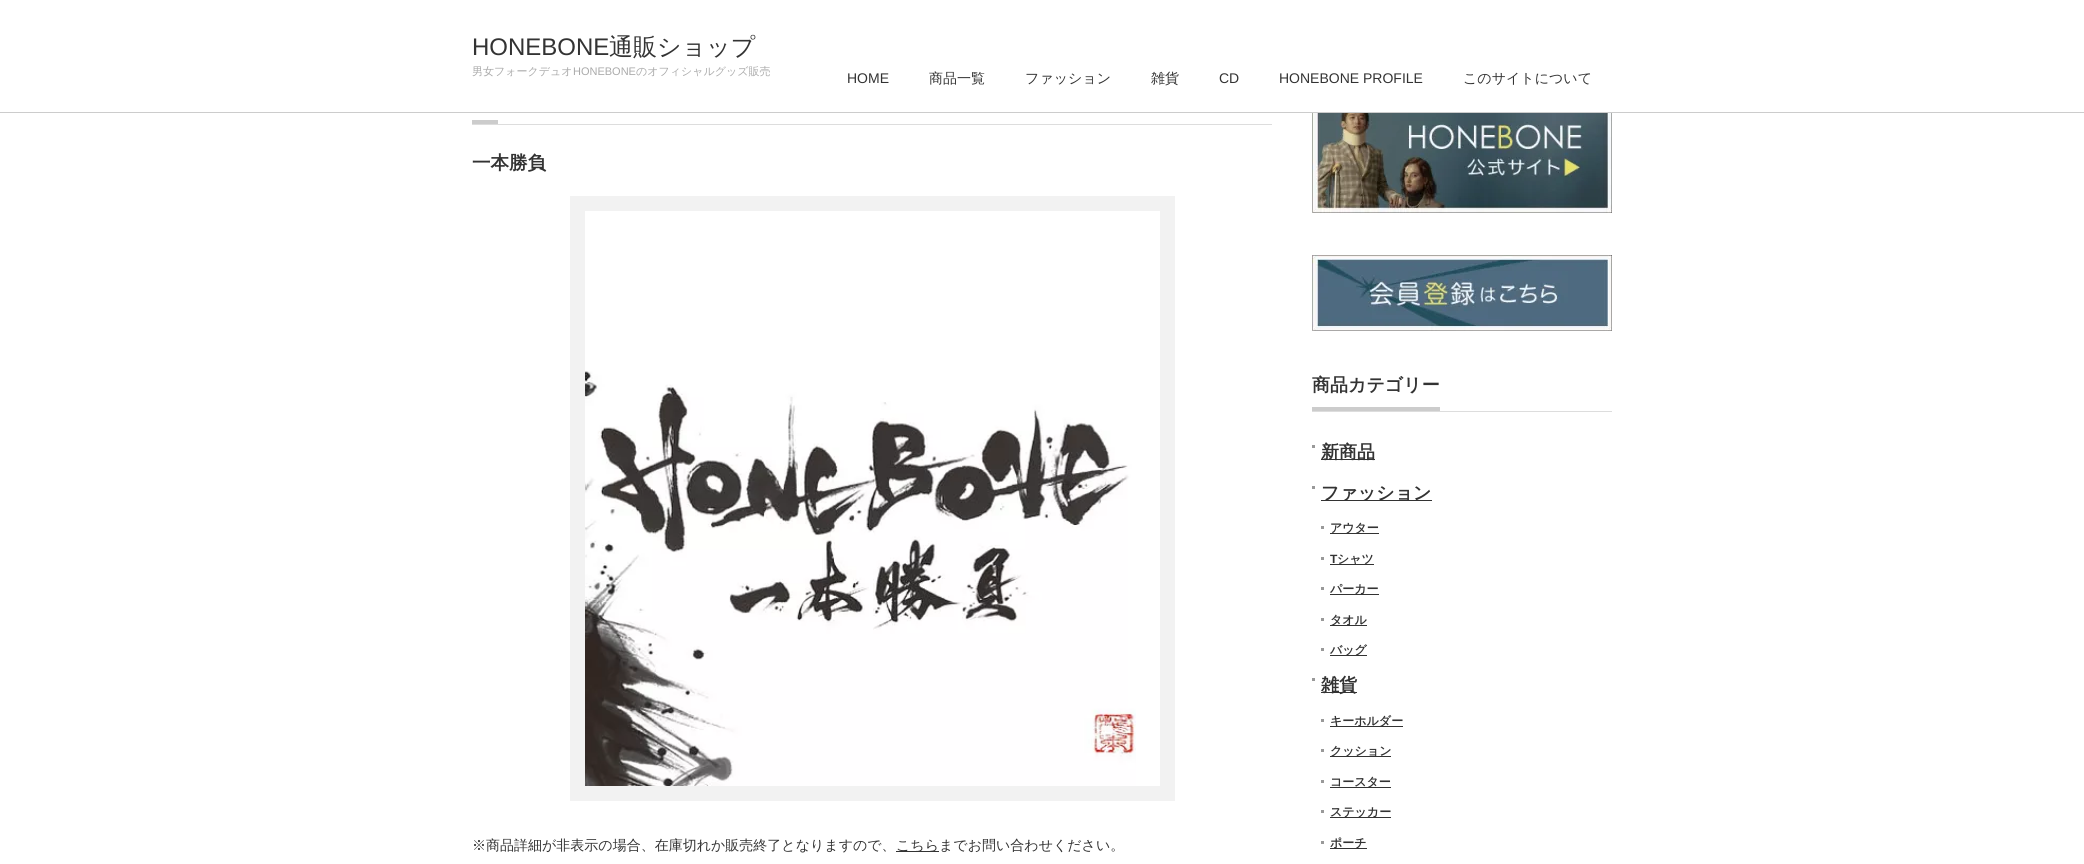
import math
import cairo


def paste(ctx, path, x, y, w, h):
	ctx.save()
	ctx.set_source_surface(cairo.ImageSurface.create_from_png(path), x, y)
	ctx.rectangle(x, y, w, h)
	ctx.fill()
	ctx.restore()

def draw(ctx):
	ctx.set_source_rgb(1, 1, 1)
	ctx.paint()
	ctx.set_source_rgb(0.8, 0.8, 0.8)
	ctx.rectangle(0, 112, 2084, 1)
	ctx.fill()
	ctx.select_font_face('Liberation Sans')
	ctx.set_font_size(24)
	ctx.set_source_rgb(0.2, 0.2, 0.2)
	ctx.move_to(472, 55)
	ctx.show_text('HONEBONE')
	ctx.select_font_face('WenQuanYi Zen Hei Medium')
	ctx.move_to(609, 55)
	ctx.show_text('通販ショップ')
	ctx.set_font_size(11)
	ctx.set_source_rgb(0.667, 0.667, 0.667)
	ctx.move_to(472, 75)
	ctx.show_text('男女フォークデュオ')
	ctx.select_font_face('Liberation Sans')
	ctx.move_to(573, 75)
	ctx.show_text('HONEBONE')
	ctx.select_font_face('WenQuanYi Zen Hei Medium')
	ctx.move_to(636, 75)
	ctx.show_text('のオフィシャルグッズ販売')
	ctx.select_font_face('Liberation Sans')
	ctx.set_font_size(14)
	ctx.set_source_rgb(0.2, 0.2, 0.2)
	ctx.move_to(847, 83)
	ctx.show_text('HOME')
	ctx.select_font_face('WenQuanYi Zen Hei Medium')
	for x, y, s in [
		(929, 83, '商品一覧'),
		(1025, 83, 'ファッション'),
		(1151, 83, '雑貨'),
	]:
		ctx.move_to(x, y)
		ctx.show_text(s)
	ctx.select_font_face('Liberation Sans')
	ctx.move_to(1219, 83)
	ctx.show_text('CD')
	ctx.move_to(1279, 83)
	ctx.show_text('HONEBONE PROFILE')
	ctx.select_font_face('WenQuanYi Zen Hei Medium')
	ctx.move_to(1463, 83)
	ctx.show_text('このサイトについて')
	ctx.set_source_rgb(0.867, 0.867, 0.867)
	ctx.rectangle(472, 124, 800, 1)
	ctx.fill()
	ctx.set_source_rgb(0.8, 0.8, 0.8)
	ctx.rectangle(472, 120, 26, 4)
	ctx.fill()
	ctx.select_font_face('WenQuanYi Zen Hei', cairo.FONT_SLANT_NORMAL, cairo.FONT_WEIGHT_BOLD)
	ctx.set_font_size(18.5)
	ctx.set_source_rgb(0.2, 0.2, 0.2)
	ctx.move_to(472, 169)
	ctx.show_text('一本勝負')
	ctx.rectangle(577.5, 203.5, 590, 590)
	ctx.set_source_rgb(0.949, 0.949, 0.949)
	ctx.set_line_width(15)
	ctx.stroke()
	paste(ctx, 'media/1.png', 585, 371, 551, 415)
	ctx.select_font_face('WenQuanYi Zen Hei Medium')
	ctx.set_font_size(14)
	ctx.set_source_rgb(0.2, 0.2, 0.2)
	ctx.move_to(472, 850)
	ctx.show_text('※商品詳細が非表示の場合、在庫切れか販売終了となりますので、')
	ctx.rectangle(896, 851, 43, 1)
	ctx.fill()
	ctx.move_to(896, 850)
	ctx.show_text('こちらまでお問い合わせください。')
	paste(ctx, 'media/2.png', 1312, 113, 300, 100)
	paste(ctx, 'media/3.png', 1312, 255, 300, 76)
	ctx.set_source_rgb(0.867, 0.867, 0.867)
	ctx.rectangle(1312, 411, 300, 1)
	ctx.fill()
	ctx.set_source_rgb(0.8, 0.8, 0.8)
	ctx.rectangle(1312, 407, 128, 4)
	ctx.fill()
	ctx.select_font_face('WenQuanYi Zen Hei', cairo.FONT_SLANT_NORMAL, cairo.FONT_WEIGHT_BOLD)
	ctx.set_font_size(18)
	ctx.set_source_rgb(0.2, 0.2, 0.2)
	ctx.move_to(1312, 391)
	ctx.show_text('商品カテゴリー')
	ctx.set_source_rgb(0.6, 0.6, 0.6)
	ctx.rectangle(1312, 445, 3, 3)
	ctx.fill()
	ctx.set_source_rgb(0.2, 0.2, 0.2)
	ctx.rectangle(1321, 459, 54, 1)
	ctx.fill()
	ctx.move_to(1321, 458)
	ctx.show_text('新商品')
	ctx.set_source_rgb(0.6, 0.6, 0.6)
	ctx.rectangle(1312, 486, 3, 3)
	ctx.fill()
	ctx.set_source_rgb(0.2, 0.2, 0.2)
	ctx.rectangle(1321, 500, 111, 1)
	ctx.fill()
	ctx.move_to(1321, 499)
	ctx.show_text('ファッション')
	ctx.set_source_rgb(0.6, 0.6, 0.6)
	ctx.rectangle(1321, 526, 3, 3)
	ctx.fill()
	ctx.set_source_rgb(0.2, 0.2, 0.2)
	ctx.rectangle(1330, 533, 49, 1)
	ctx.fill()
	ctx.set_font_size(12)
	ctx.move_to(1330, 532)
	ctx.show_text('アウター')
	ctx.set_source_rgb(0.6, 0.6, 0.6)
	ctx.rectangle(1321, 557, 3, 3)
	ctx.fill()
	ctx.select_font_face('Liberation Sans', cairo.FONT_SLANT_NORMAL, cairo.FONT_WEIGHT_BOLD)
	ctx.set_source_rgb(0.2, 0.2, 0.2)
	ctx.move_to(1330, 563)
	ctx.show_text('T')
	ctx.rectangle(1330, 564, 44, 1)
	ctx.fill()
	ctx.select_font_face('WenQuanYi Zen Hei', cairo.FONT_SLANT_NORMAL, cairo.FONT_WEIGHT_BOLD)
	ctx.move_to(1337, 563)
	ctx.show_text('シャツ')
	ctx.set_source_rgb(0.6, 0.6, 0.6)
	ctx.rectangle(1321, 587, 3, 3)
	ctx.fill()
	ctx.set_source_rgb(0.2, 0.2, 0.2)
	ctx.rectangle(1330, 594, 49, 1)
	ctx.fill()
	ctx.move_to(1330, 593)
	ctx.show_text('パーカー')
	ctx.set_source_rgb(0.6, 0.6, 0.6)
	ctx.rectangle(1321, 618, 3, 3)
	ctx.fill()
	ctx.set_source_rgb(0.2, 0.2, 0.2)
	ctx.rectangle(1330, 625, 37, 1)
	ctx.fill()
	ctx.move_to(1330, 624)
	ctx.show_text('タオル')
	ctx.set_source_rgb(0.6, 0.6, 0.6)
	ctx.rectangle(1321, 648, 3, 3)
	ctx.fill()
	ctx.set_source_rgb(0.2, 0.2, 0.2)
	ctx.rectangle(1330, 655, 37, 1)
	ctx.fill()
	ctx.move_to(1330, 654)
	ctx.show_text('バッグ')
	ctx.set_source_rgb(0.6, 0.6, 0.6)
	ctx.rectangle(1312, 678, 3, 3)
	ctx.fill()
	ctx.set_source_rgb(0.2, 0.2, 0.2)
	ctx.rectangle(1321, 692, 36, 1)
	ctx.fill()
	ctx.set_font_size(18)
	ctx.move_to(1321, 691)
	ctx.show_text('雑貨')
	ctx.set_source_rgb(0.6, 0.6, 0.6)
	ctx.rectangle(1321, 719, 3, 3)
	ctx.fill()
	ctx.set_source_rgb(0.2, 0.2, 0.2)
	ctx.rectangle(1330, 726, 73, 1)
	ctx.fill()
	ctx.set_font_size(12)
	ctx.move_to(1330, 725)
	ctx.show_text('キーホルダー')
	ctx.set_source_rgb(0.6, 0.6, 0.6)
	ctx.rectangle(1321, 749, 3, 3)
	ctx.fill()
	ctx.set_source_rgb(0.2, 0.2, 0.2)
	ctx.rectangle(1330, 756, 61, 1)
	ctx.fill()
	ctx.move_to(1330, 755)
	ctx.show_text('クッション')
	ctx.set_source_rgb(0.6, 0.6, 0.6)
	ctx.rectangle(1321, 780, 3, 3)
	ctx.fill()
	ctx.set_source_rgb(0.2, 0.2, 0.2)
	ctx.rectangle(1330, 787, 61, 1)
	ctx.fill()
	ctx.move_to(1330, 786)
	ctx.show_text('コースター')
	ctx.set_source_rgb(0.6, 0.6, 0.6)
	ctx.rectangle(1321, 810, 3, 3)
	ctx.fill()
	ctx.set_source_rgb(0.2, 0.2, 0.2)
	ctx.rectangle(1330, 817, 61, 1)
	ctx.fill()
	ctx.move_to(1330, 816)
	ctx.show_text('ステッカー')
	ctx.set_source_rgb(0.6, 0.6, 0.6)
	ctx.rectangle(1321, 841, 3, 3)
	ctx.fill()
	ctx.set_source_rgb(0.2, 0.2, 0.2)
	ctx.rectangle(1330, 848, 37, 1)
	ctx.fill()
	ctx.move_to(1330, 847)
	ctx.show_text('ポーチ')


surface = cairo.ImageSurface(cairo.FORMAT_RGB24, 2084, 864)
ctx = cairo.Context(surface)
options = cairo.FontOptions()
options.set_hint_metrics(cairo.HINT_METRICS_OFF)
options.set_hint_style(cairo.HINT_STYLE_NONE)
ctx.set_font_options(options)
ctx.set_miter_limit(4)
draw(ctx)
surface.write_to_png('image.png')
